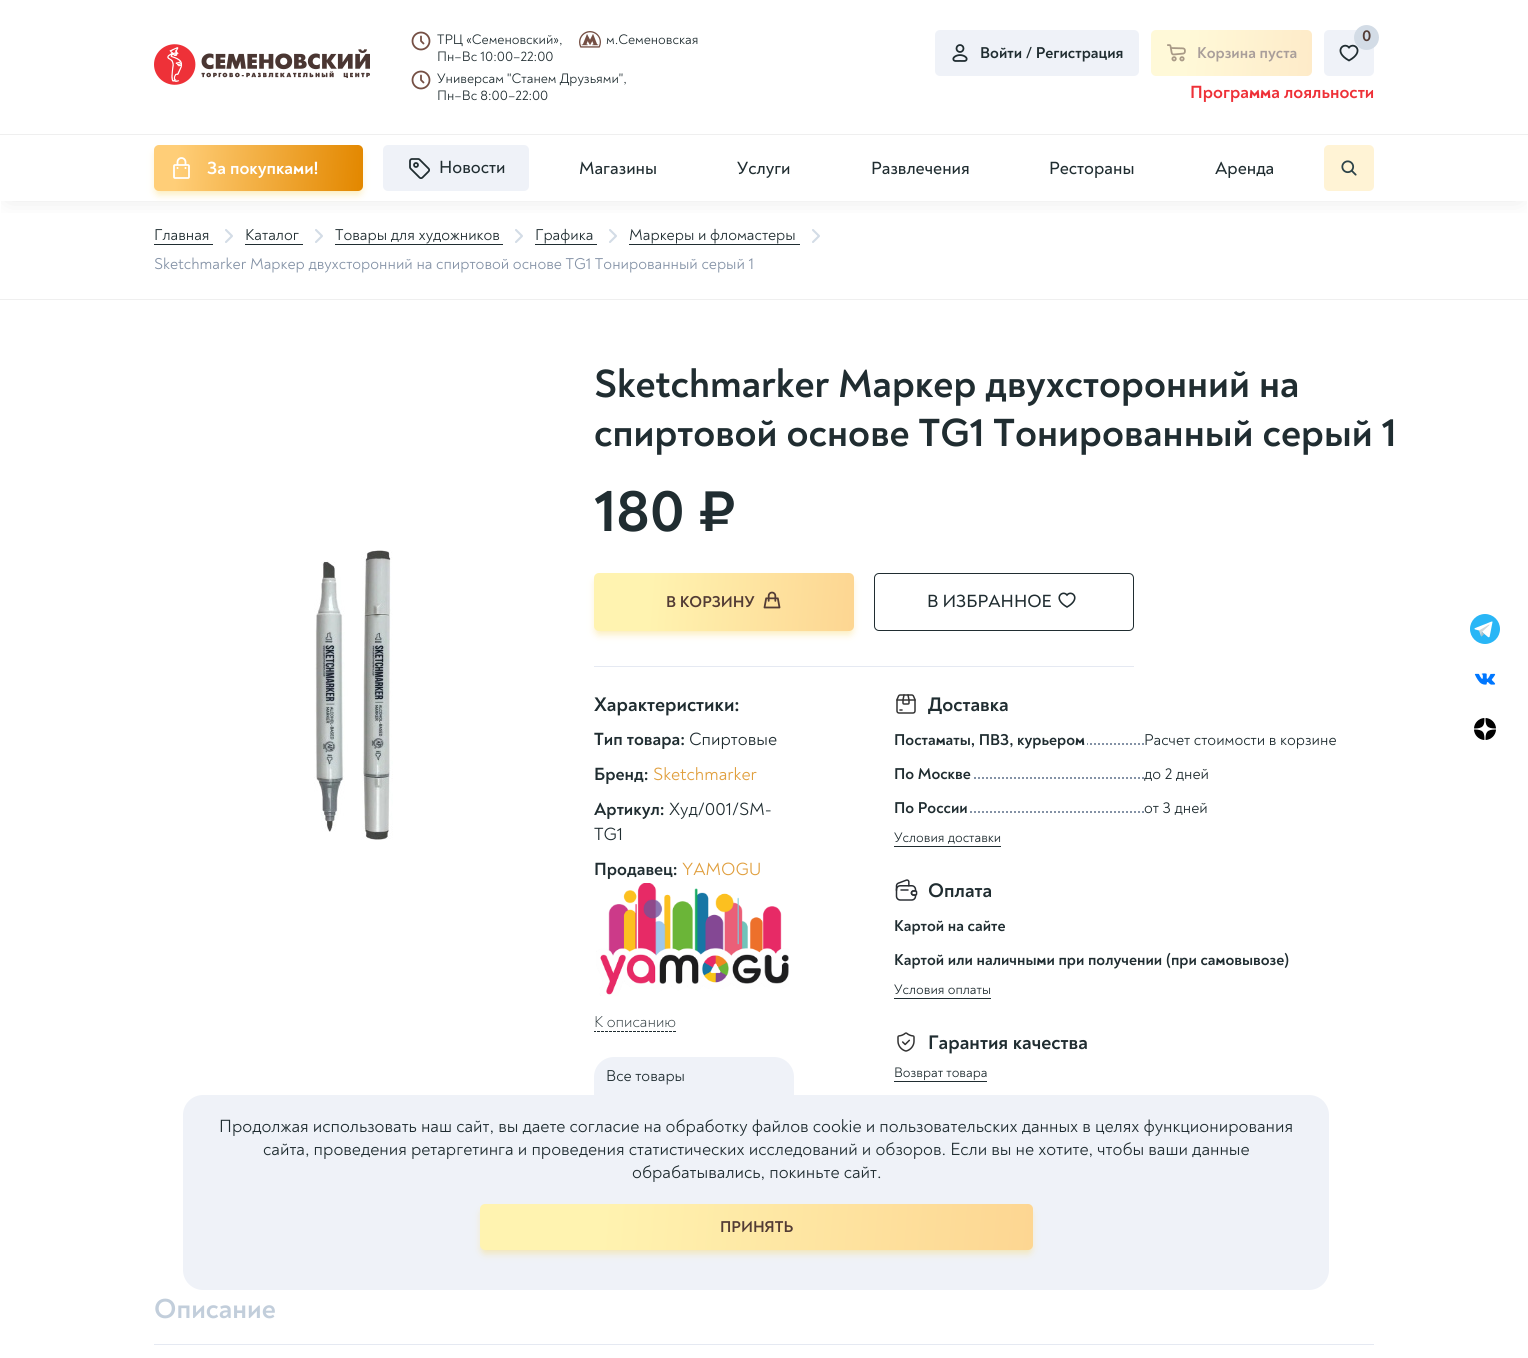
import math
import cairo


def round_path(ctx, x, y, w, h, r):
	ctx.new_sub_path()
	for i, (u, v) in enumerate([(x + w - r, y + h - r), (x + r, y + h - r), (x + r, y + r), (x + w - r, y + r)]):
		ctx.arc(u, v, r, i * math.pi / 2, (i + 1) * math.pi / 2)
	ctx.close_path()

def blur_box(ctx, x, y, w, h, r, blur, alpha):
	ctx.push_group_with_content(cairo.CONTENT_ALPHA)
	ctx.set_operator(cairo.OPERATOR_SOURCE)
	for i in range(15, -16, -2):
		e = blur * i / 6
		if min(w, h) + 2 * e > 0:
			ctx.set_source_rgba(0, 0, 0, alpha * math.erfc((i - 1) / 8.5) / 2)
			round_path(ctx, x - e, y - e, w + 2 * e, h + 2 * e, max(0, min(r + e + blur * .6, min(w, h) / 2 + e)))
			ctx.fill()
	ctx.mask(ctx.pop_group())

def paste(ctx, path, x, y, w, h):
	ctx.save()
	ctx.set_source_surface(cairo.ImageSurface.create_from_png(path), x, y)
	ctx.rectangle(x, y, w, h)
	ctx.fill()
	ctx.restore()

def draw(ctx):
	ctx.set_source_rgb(1, 1, 1)
	ctx.paint()
	ctx.save()
	ctx.rectangle(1, 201, 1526, 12)
	ctx.clip()
	ctx.set_source_rgb(0.478, 0.478, 0.478)
	blur_box(ctx, 9, 13, 1510, 183, 0, 12, 0.25)
	ctx.restore()
	paste(ctx, 'media/1.png', 154, 44, 216, 41)
	ctx.arc(421, 41, 8.5, 0, 2 * math.pi)
	ctx.set_source_rgb(0.459, 0.31, 0.267)
	ctx.set_line_width(1.8)
	ctx.stroke()
	ctx.new_path()
	ctx.move_to(421, 36.5)
	ctx.line_to(421, 41)
	ctx.line_to(423.5, 43.5)
	ctx.set_line_cap(cairo.LINE_CAP_ROUND)
	ctx.set_line_join(cairo.LINE_JOIN_ROUND)
	ctx.stroke()
	ctx.select_font_face('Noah')
	ctx.set_font_size(14)
	ctx.set_source_rgb(0.125, 0.176, 0.192)
	ctx.move_to(437, 44)
	ctx.show_text('ТРЦ «Семеновский»,')
	ctx.move_to(437, 61)
	ctx.show_text('Пн–Вс 10:00–22:00')
	paste(ctx, 'media/2.png', 579, 31, 22, 17)
	ctx.move_to(606, 44)
	ctx.show_text('м.Семеновская')
	ctx.new_path()
	ctx.arc(421, 80, 8.5, 0, 2 * math.pi)
	ctx.set_source_rgb(0.459, 0.31, 0.267)
	ctx.set_line_cap(cairo.LINE_CAP_BUTT)
	ctx.set_line_join(cairo.LINE_JOIN_MITER)
	ctx.stroke()
	ctx.new_path()
	ctx.move_to(421, 75.5)
	ctx.line_to(421, 80)
	ctx.line_to(423.5, 82.5)
	ctx.set_line_cap(cairo.LINE_CAP_ROUND)
	ctx.set_line_join(cairo.LINE_JOIN_ROUND)
	ctx.stroke()
	ctx.set_source_rgb(0.125, 0.176, 0.192)
	ctx.move_to(437, 83)
	ctx.show_text('Универсам "Станем Друзьями",')
	ctx.move_to(437, 100)
	ctx.show_text('Пн–Вс 8:00–22:00')
	ctx.set_source_rgb(0.937, 0.949, 0.969)
	round_path(ctx, 935, 30, 204, 46, 5)
	ctx.fill()
	paste(ctx, 'media/3.png', 952, 44, 16, 18)
	ctx.select_font_face('Noah', cairo.FONT_SLANT_NORMAL, cairo.FONT_WEIGHT_BOLD)
	ctx.set_font_size(16)
	ctx.set_source_rgb(0.125, 0.176, 0.192)
	ctx.move_to(980, 58)
	ctx.show_text('Войти / Регистрация')
	ctx.set_source_rgb(0.937, 0.949, 0.969)
	round_path(ctx, 1324, 30, 50, 46, 5)
	ctx.fill()
	ctx.new_path()
	ctx.move_to(1349, 60.5)
	ctx.curve_to(1332.5, 51.5, 1344, 41.5, 1349, 47.5)
	ctx.curve_to(1354, 41.5, 1365.5, 51.5, 1349, 60.5)
	ctx.close_path()
	ctx.set_source_rgb(0.125, 0.176, 0.192)
	ctx.set_line_cap(cairo.LINE_CAP_BUTT)
	ctx.set_line_join(cairo.LINE_JOIN_MITER)
	ctx.stroke()
	ctx.set_source_rgb(0.827, 0.863, 0.902)
	ctx.arc(1366.5, 37.5, 12.5, 0, 2 * math.pi)
	ctx.fill()
	ctx.set_source_rgb(0.325, 0.235, 0.208)
	ctx.move_to(1362, 41)
	ctx.show_text('0')
	gradient = cairo.LinearGradient(1150, 40, 1474, 66)
	gradient.add_color_stop_rgba(0.11, 1, 0.976, 0.847, 1)
	gradient.add_color_stop_rgba(0.5, 0.996, 0.922, 0.788, 1)
	gradient.add_color_stop_rgba(1, 0.996, 0.922, 0.788, 1)
	ctx.set_source(gradient)
	round_path(ctx, 1151, 30, 161, 46, 5)
	ctx.fill()
	paste(ctx, 'media/4.png', 1167, 44, 19, 18)
	ctx.set_source_rgb(0.663, 0.62, 0.604)
	ctx.move_to(1197, 58)
	ctx.show_text('Корзина пуста')
	ctx.set_font_size(18)
	ctx.set_source_rgb(0.933, 0.192, 0.22)
	ctx.move_to(1190, 98)
	ctx.show_text('Программа лояльности')
	ctx.set_source_rgb(0.937, 0.937, 0.937)
	ctx.rectangle(0, 134, 1528, 1)
	ctx.fill()
	ctx.set_source_rgb(0.969, 0.847, 0.424)
	blur_box(ctx, 156, 152, 205, 42, 3, 4, 0.5)
	gradient = cairo.LinearGradient(153, 160, 364, 176)
	gradient.add_color_stop_rgba(0.11, 1, 0.808, 0.471, 1)
	gradient.add_color_stop_rgba(0.99, 0.89, 0.533, 0, 1)
	ctx.set_source(gradient)
	round_path(ctx, 154, 145, 209, 46, 5)
	ctx.fill()
	paste(ctx, 'media/5.png', 173, 157, 17, 22)
	ctx.set_source_rgb(1, 1, 1)
	ctx.move_to(207, 174)
	ctx.show_text('За покупками!')
	ctx.set_source_rgb(0.937, 0.949, 0.969)
	round_path(ctx, 383, 145, 146, 46, 5)
	ctx.fill()
	paste(ctx, 'media/6.png', 409, 158, 21, 21)
	ctx.select_font_face('Noah Medium')
	ctx.set_source_rgb(0.125, 0.176, 0.192)
	for x, y, s in [
		(439, 173, 'Новости'),
		(579, 174, 'Магазины'),
		(737, 174, 'Услуги'),
		(871, 174, 'Развлечения'),
		(1049, 174, 'Рестораны'),
		(1215, 174, 'Аренда'),
	]:
		ctx.move_to(x, y)
		ctx.show_text(s)
	ctx.set_source_rgb(1, 0.953, 0.835)
	round_path(ctx, 1324, 145, 50, 46, 5)
	ctx.fill()
	paste(ctx, 'media/7.png', 1341, 160, 16, 16)
	ctx.set_source_rgb(0.937, 0.937, 0.937)
	ctx.rectangle(0, 299, 1528, 1)
	ctx.fill()
	ctx.select_font_face('Noah')
	ctx.set_font_size(16)
	ctx.set_source_rgb(0.125, 0.176, 0.192)
	ctx.move_to(154, 240)
	ctx.show_text('Главная')
	ctx.rectangle(154, 244, 59, 1)
	ctx.fill()
	ctx.new_path()
	ctx.move_to(226, 230)
	ctx.line_to(232, 236)
	ctx.line_to(226, 242)
	ctx.set_source_rgb(0.827, 0.863, 0.902)
	ctx.set_line_width(2.1)
	ctx.set_line_cap(cairo.LINE_CAP_ROUND)
	ctx.set_line_join(cairo.LINE_JOIN_ROUND)
	ctx.stroke()
	ctx.set_source_rgb(0.125, 0.176, 0.192)
	ctx.move_to(245, 240)
	ctx.show_text('Каталог')
	ctx.rectangle(245, 244, 58, 1)
	ctx.fill()
	ctx.new_path()
	ctx.move_to(316, 230)
	ctx.line_to(322, 236)
	ctx.line_to(316, 242)
	ctx.set_source_rgb(0.827, 0.863, 0.902)
	ctx.stroke()
	ctx.set_source_rgb(0.125, 0.176, 0.192)
	ctx.move_to(335, 240)
	ctx.show_text('Товары для художников')
	ctx.rectangle(335, 244, 168, 1)
	ctx.fill()
	ctx.new_path()
	ctx.move_to(516, 230)
	ctx.line_to(522, 236)
	ctx.line_to(516, 242)
	ctx.set_source_rgb(0.827, 0.863, 0.902)
	ctx.stroke()
	ctx.set_source_rgb(0.125, 0.176, 0.192)
	ctx.move_to(535, 240)
	ctx.show_text('Графика')
	ctx.rectangle(535, 244, 62, 1)
	ctx.fill()
	ctx.new_path()
	ctx.move_to(610, 230)
	ctx.line_to(616, 236)
	ctx.line_to(610, 242)
	ctx.set_source_rgb(0.827, 0.863, 0.902)
	ctx.stroke()
	ctx.set_source_rgb(0.125, 0.176, 0.192)
	ctx.move_to(629, 240)
	ctx.show_text('Маркеры и фломастеры')
	ctx.rectangle(629, 244, 171, 1)
	ctx.fill()
	ctx.new_path()
	ctx.move_to(813, 230)
	ctx.line_to(819, 236)
	ctx.line_to(813, 242)
	ctx.set_source_rgb(0.827, 0.863, 0.902)
	ctx.stroke()
	ctx.set_source_rgb(0.518, 0.573, 0.651)
	ctx.move_to(154, 269)
	ctx.show_text('Sketchmarker Маркер двухсторонний на спиртовой основе TG1 Тонированный серый 1')
	paste(ctx, 'media/8.png', 314, 550, 79, 290)
	ctx.select_font_face('Noah', cairo.FONT_SLANT_NORMAL, cairo.FONT_WEIGHT_BOLD)
	ctx.set_font_size(40)
	ctx.set_source_rgb(0.125, 0.176, 0.192)
	ctx.move_to(594, 397)
	ctx.show_text('Sketchmarker Маркер двухсторонний на')
	ctx.move_to(594, 446)
	ctx.show_text('спиртовой основе TG1 Тонированный серый 1')
	ctx.set_font_size(60)
	ctx.move_to(594, 531)
	ctx.show_text('180 ₽')
	ctx.set_source_rgb(0.969, 0.847, 0.424)
	blur_box(ctx, 596, 580, 256, 54, 3, 4, 0.5)
	gradient = cairo.LinearGradient(593, 581, 1115, 623)
	gradient.add_color_stop_rgba(0.11, 1, 0.953, 0.69, 1)
	gradient.add_color_stop_rgba(0.5, 0.992, 0.839, 0.573, 1)
	gradient.add_color_stop_rgba(1, 0.992, 0.839, 0.573, 1)
	ctx.set_source(gradient)
	round_path(ctx, 594, 573, 260, 58, 5)
	ctx.fill()
	ctx.set_font_size(16)
	ctx.set_source_rgb(0.325, 0.235, 0.208)
	ctx.move_to(666, 607)
	ctx.show_text('В КОРЗИНУ')
	paste(ctx, 'media/9.png', 763, 591, 18, 18)
	round_path(ctx, 874.5, 573.5, 259, 57, 4.5)
	ctx.set_source_rgb(0.125, 0.176, 0.192)
	ctx.set_line_width(1)
	ctx.set_line_cap(cairo.LINE_CAP_BUTT)
	ctx.set_line_join(cairo.LINE_JOIN_MITER)
	ctx.stroke()
	ctx.select_font_face('Noah Medium')
	ctx.set_font_size(18)
	ctx.move_to(927, 607)
	ctx.show_text('В ИЗБРАННОЕ')
	ctx.new_path()
	ctx.move_to(1067, 607)
	ctx.curve_to(1052, 598.5, 1062.5, 589.5, 1067, 595)
	ctx.curve_to(1071.5, 589.5, 1082, 598.5, 1067, 607)
	ctx.close_path()
	ctx.set_line_width(1.6)
	ctx.stroke()
	ctx.set_source_rgb(0.898, 0.914, 0.949)
	ctx.rectangle(594, 666, 540, 1)
	ctx.fill()
	ctx.select_font_face('Noah', cairo.FONT_SLANT_NORMAL, cairo.FONT_WEIGHT_BOLD)
	ctx.set_font_size(20)
	ctx.set_source_rgb(0.125, 0.176, 0.192)
	ctx.move_to(594, 711)
	ctx.show_text('Характеристики:')
	ctx.set_font_size(18)
	ctx.move_to(594, 745)
	ctx.show_text('Тип товара:')
	ctx.select_font_face('Noah')
	ctx.move_to(689, 745)
	ctx.show_text('Спиртовые')
	ctx.select_font_face('Noah', cairo.FONT_SLANT_NORMAL, cairo.FONT_WEIGHT_BOLD)
	ctx.move_to(594, 780)
	ctx.show_text('Бренд:')
	ctx.select_font_face('Noah')
	ctx.set_source_rgb(0.878, 0.624, 0.243)
	ctx.move_to(653, 780)
	ctx.show_text('Sketchmarker')
	ctx.select_font_face('Noah', cairo.FONT_SLANT_NORMAL, cairo.FONT_WEIGHT_BOLD)
	ctx.set_source_rgb(0.125, 0.176, 0.192)
	ctx.move_to(594, 815)
	ctx.show_text('Артикул:')
	ctx.select_font_face('Noah')
	ctx.move_to(669, 815)
	ctx.show_text('Худ/001/SM-')
	ctx.move_to(594, 840)
	ctx.show_text('TG1')
	ctx.select_font_face('Noah', cairo.FONT_SLANT_NORMAL, cairo.FONT_WEIGHT_BOLD)
	ctx.move_to(594, 875)
	ctx.show_text('Продавец:')
	ctx.select_font_face('Noah')
	ctx.set_source_rgb(0.878, 0.624, 0.243)
	ctx.move_to(682, 875)
	ctx.show_text('YAMOGU')
	paste(ctx, 'media/10.png', 596, 883, 193, 113)
	paste(ctx, 'media/11.png', 594, 1031, 82, 1)
	ctx.select_font_face('Noah Light')
	ctx.set_font_size(16)
	ctx.set_source_rgb(0.125, 0.176, 0.192)
	ctx.move_to(594, 1027)
	ctx.show_text('К описанию')
	ctx.set_source_rgb(0.937, 0.949, 0.969)
	round_path(ctx, 594, 1057, 200, 106, 20)
	ctx.fill()
	ctx.select_font_face('Noah')
	ctx.set_source_rgb(0.125, 0.176, 0.192)
	ctx.move_to(606, 1081)
	ctx.show_text('Все товары')
	paste(ctx, 'media/12.png', 896, 694, 20, 20)
	ctx.select_font_face('Noah', cairo.FONT_SLANT_NORMAL, cairo.FONT_WEIGHT_BOLD)
	ctx.set_font_size(20)
	ctx.move_to(928, 711)
	ctx.show_text('Доставка')
	ctx.new_path()
	ctx.move_to(894, 744)
	ctx.line_to(1144, 744)
	ctx.set_source_rgb(0.518, 0.573, 0.651)
	ctx.set_line_width(2)
	ctx.set_dash([2, 2])
	ctx.stroke()
	ctx.set_source_rgb(1, 1, 1)
	ctx.rectangle(894, 743, 193, 2)
	ctx.fill()
	ctx.set_font_size(16)
	ctx.set_source_rgb(0.125, 0.176, 0.192)
	ctx.move_to(894, 745)
	ctx.show_text('Постаматы, ПВЗ, курьером')
	ctx.select_font_face('Noah')
	ctx.move_to(1144, 745)
	ctx.show_text('Расчет стоимости в корзине')
	ctx.new_path()
	ctx.move_to(894, 778)
	ctx.line_to(1144, 778)
	ctx.set_source_rgb(0.518, 0.573, 0.651)
	ctx.stroke()
	ctx.set_source_rgb(1, 1, 1)
	ctx.rectangle(894, 777, 78, 2)
	ctx.fill()
	ctx.select_font_face('Noah', cairo.FONT_SLANT_NORMAL, cairo.FONT_WEIGHT_BOLD)
	ctx.set_source_rgb(0.125, 0.176, 0.192)
	ctx.move_to(894, 779)
	ctx.show_text('По Москве')
	ctx.select_font_face('Noah')
	ctx.move_to(1144, 779)
	ctx.show_text('до 2 дней')
	ctx.new_path()
	ctx.move_to(894, 812)
	ctx.line_to(1144, 812)
	ctx.set_source_rgb(0.518, 0.573, 0.651)
	ctx.stroke()
	ctx.set_source_rgb(1, 1, 1)
	ctx.rectangle(894, 811, 74, 2)
	ctx.fill()
	ctx.select_font_face('Noah', cairo.FONT_SLANT_NORMAL, cairo.FONT_WEIGHT_BOLD)
	ctx.set_source_rgb(0.125, 0.176, 0.192)
	ctx.move_to(894, 813)
	ctx.show_text('По России')
	ctx.select_font_face('Noah')
	ctx.move_to(1144, 813)
	ctx.show_text('от 3 дней')
	ctx.rectangle(894, 846, 107, 1)
	ctx.fill()
	ctx.set_font_size(14)
	ctx.move_to(894, 842)
	ctx.show_text('Условия доставки')
	paste(ctx, 'media/13.png', 895, 879, 23, 22)
	ctx.select_font_face('Noah', cairo.FONT_SLANT_NORMAL, cairo.FONT_WEIGHT_BOLD)
	ctx.set_font_size(20)
	ctx.move_to(928, 897)
	ctx.show_text('Оплата')
	ctx.set_font_size(16)
	ctx.move_to(894, 931)
	ctx.show_text('Картой на сайте')
	ctx.move_to(894, 965)
	ctx.show_text('Картой или наличными при получении (при самовывозе)')
	ctx.rectangle(894, 998, 97, 1)
	ctx.fill()
	ctx.select_font_face('Noah')
	ctx.set_font_size(14)
	ctx.move_to(894, 994)
	ctx.show_text('Условия оплаты')
	paste(ctx, 'media/14.png', 897, 1032, 18, 20)
	ctx.select_font_face('Noah', cairo.FONT_SLANT_NORMAL, cairo.FONT_WEIGHT_BOLD)
	ctx.set_font_size(20)
	ctx.move_to(928, 1049)
	ctx.show_text('Гарантия качества')
	ctx.rectangle(894, 1081, 93, 1)
	ctx.fill()
	ctx.select_font_face('Noah')
	ctx.set_font_size(14)
	ctx.move_to(894, 1077)
	ctx.show_text('Возврат товара')
	ctx.set_source_rgb(0.898, 0.914, 0.949)
	ctx.rectangle(154, 1344, 1220, 1)
	ctx.fill()
	ctx.select_font_face('Noah', cairo.FONT_SLANT_NORMAL, cairo.FONT_WEIGHT_BOLD)
	ctx.set_font_size(28)
	ctx.set_source_rgb(0.761, 0.808, 0.859)
	ctx.move_to(154, 1318)
	ctx.show_text('Описание')
	paste(ctx, 'media/15.png', 1470, 614, 30, 30)
	paste(ctx, 'media/16.png', 1474, 673, 22, 12)
	paste(ctx, 'media/17.png', 1474, 718, 22, 22)
	ctx.set_source_rgb(0.937, 0.949, 0.969)
	round_path(ctx, 183, 1095, 1146, 195, 20)
	ctx.fill()
	ctx.select_font_face('Noah')
	ctx.set_font_size(18)
	ctx.set_source_rgb(0.125, 0.176, 0.192)
	for x, y, s in [
		(219, 1132, 'Продолжая использовать наш сайт, вы даете согласие на обработку файлов cookie и пользовательских данных в целях функционирования'),
		(263, 1155, 'сайта, проведения ретаргетинга и проведения статистических исследований и обзоров. Если вы не хотите, чтобы ваши данные'),
		(632, 1178, 'обрабатывались, покиньте сайт.'),
	]:
		ctx.move_to(x, y)
		ctx.show_text(s)
	ctx.set_source_rgb(0.969, 0.847, 0.424)
	blur_box(ctx, 482, 1211, 549, 42, 3, 4, 0.5)
	gradient = cairo.LinearGradient(482, 1183, 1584, 1271)
	gradient.add_color_stop_rgba(0.11, 1, 0.953, 0.69, 1)
	gradient.add_color_stop_rgba(0.5, 0.992, 0.839, 0.573, 1)
	gradient.add_color_stop_rgba(1, 0.992, 0.839, 0.573, 1)
	ctx.set_source(gradient)
	round_path(ctx, 480, 1204, 553, 46, 5)
	ctx.fill()
	ctx.select_font_face('Noah', cairo.FONT_SLANT_NORMAL, cairo.FONT_WEIGHT_BOLD)
	ctx.set_font_size(16)
	ctx.set_source_rgb(0.325, 0.235, 0.208)
	ctx.move_to(720, 1232)
	ctx.show_text('ПРИНЯТЬ')


surface = cairo.ImageSurface(cairo.FORMAT_RGB24, 1528, 1358)
ctx = cairo.Context(surface)
options = cairo.FontOptions()
options.set_hint_metrics(cairo.HINT_METRICS_OFF)
options.set_hint_style(cairo.HINT_STYLE_NONE)
ctx.set_font_options(options)
ctx.set_miter_limit(4)
draw(ctx)
surface.write_to_png('image.png')
